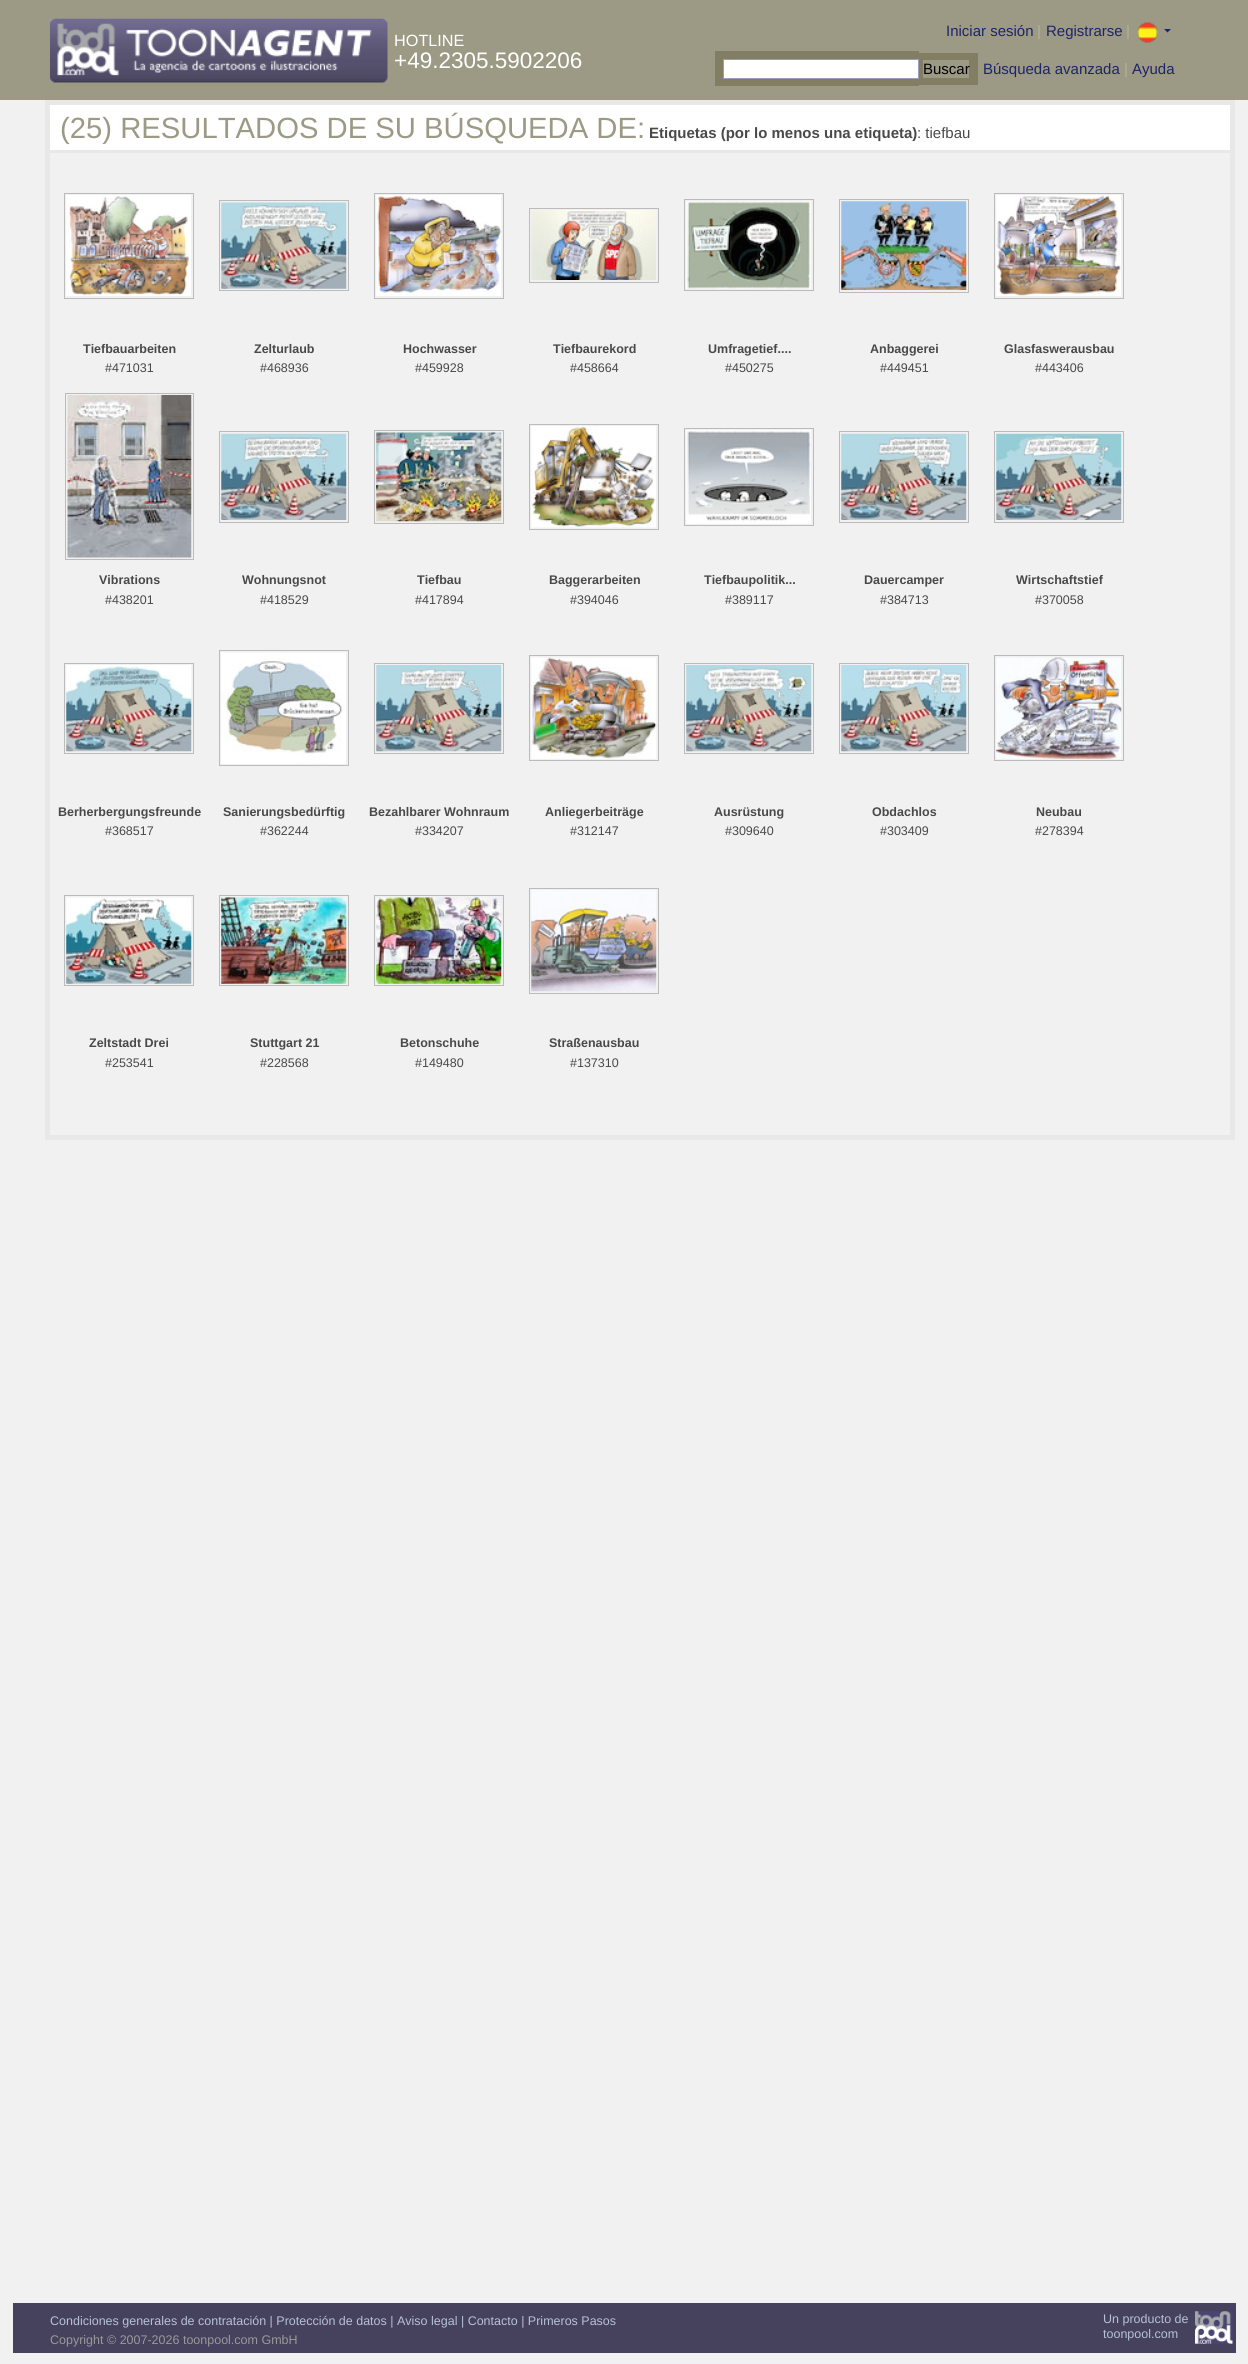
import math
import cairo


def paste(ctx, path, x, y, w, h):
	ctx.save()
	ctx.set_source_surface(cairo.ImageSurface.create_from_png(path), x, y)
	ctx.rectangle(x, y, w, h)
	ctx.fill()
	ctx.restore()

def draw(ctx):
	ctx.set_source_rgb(0.945, 0.945, 0.945)
	ctx.paint()
	ctx.set_source_rgb(0.612, 0.6, 0.518)
	ctx.rectangle(0, 0, 1248, 100)
	ctx.fill()
	ctx.select_font_face('Liberation Sans')
	ctx.set_font_size(15)
	ctx.set_source_rgb(0.114, 0.141, 0.424)
	ctx.move_to(946, 36)
	ctx.show_text('Iniciar sesión')
	ctx.set_source_rgb(0.71, 0.698, 0.608)
	ctx.move_to(1037, 36)
	ctx.show_text('|')
	ctx.set_source_rgb(0.114, 0.141, 0.424)
	ctx.move_to(1046, 36)
	ctx.show_text('Registrarse')
	ctx.set_source_rgb(0.71, 0.698, 0.608)
	ctx.move_to(1126, 36)
	ctx.show_text('|')
	paste(ctx, 'media/1.png', 1137, 22, 21, 21)
	ctx.set_source_rgb(0.114, 0.141, 0.424)
	ctx.new_path()
	ctx.move_to(1164, 29)
	ctx.line_to(1171, 29)
	ctx.line_to(1167.5, 32.5)
	ctx.close_path()
	ctx.fill()
	paste(ctx, 'media/2.png', 50, 18, 338, 65)
	ctx.set_font_size(16.25)
	ctx.set_source_rgb(1, 1, 1)
	ctx.move_to(394, 46)
	ctx.show_text('HOTLINE')
	ctx.set_font_size(22.5)
	ctx.move_to(394, 68)
	ctx.show_text('+49.2305.5902206')
	ctx.set_source_rgb(0.51, 0.494, 0.388)
	ctx.rectangle(715, 51, 204, 35)
	ctx.fill()
	ctx.rectangle(919, 53, 59, 32)
	ctx.fill()
	ctx.set_source_rgb(1, 1, 1)
	ctx.rectangle(723.5, 59.5, 195, 19)
	ctx.fill_preserve()
	ctx.set_source_rgb(0.6, 0.612, 0.733)
	ctx.set_line_width(1)
	ctx.stroke()
	ctx.set_source_rgb(0.612, 0.6, 0.518)
	ctx.rectangle(923, 60, 46, 18)
	ctx.fill()
	ctx.set_font_size(15)
	ctx.set_source_rgb(0, 0, 0)
	ctx.move_to(923, 74)
	ctx.show_text('Buscar')
	ctx.set_source_rgb(0.114, 0.141, 0.424)
	ctx.move_to(983, 74)
	ctx.show_text('Búsqueda avanzada')
	ctx.set_source_rgb(0.71, 0.698, 0.608)
	ctx.move_to(1124, 74)
	ctx.show_text('|')
	ctx.set_source_rgb(0.114, 0.141, 0.424)
	ctx.move_to(1132, 74)
	ctx.show_text('Ayuda')
	ctx.rectangle(47.5, 102.5, 1185, 1035)
	ctx.set_source_rgb(0.91, 0.91, 0.91)
	ctx.set_line_width(5)
	ctx.stroke()
	ctx.set_source_rgb(1, 1, 1)
	ctx.rectangle(50, 105, 1180, 45)
	ctx.fill()
	ctx.set_font_size(29.25)
	ctx.set_source_rgb(0.612, 0.6, 0.518)
	ctx.move_to(60, 138)
	ctx.show_text('(25) RESULTADOS DE SU BÚSQUEDA DE:')
	ctx.select_font_face('Liberation Sans', cairo.FONT_SLANT_NORMAL, cairo.FONT_WEIGHT_BOLD)
	ctx.set_font_size(15)
	ctx.set_source_rgb(0.286, 0.286, 0.286)
	ctx.move_to(649, 138)
	ctx.show_text('Etiquetas (por lo menos una etiqueta)')
	ctx.select_font_face('Liberation Sans')
	ctx.move_to(917, 138)
	ctx.show_text(': tiefbau')
	ctx.set_source_rgb(0.91, 0.91, 0.91)
	ctx.rectangle(50, 150, 1180, 3)
	ctx.fill()
	ctx.rectangle(64.5, 193.5, 129, 105)
	ctx.set_source_rgb(0.733, 0.733, 0.733)
	ctx.set_line_width(1)
	ctx.stroke()
	paste(ctx, 'media/3.png', 66, 195, 125, 101)
	ctx.select_font_face('Liberation Sans', cairo.FONT_SLANT_NORMAL, cairo.FONT_WEIGHT_BOLD)
	ctx.set_font_size(12.5)
	ctx.set_source_rgb(0.286, 0.286, 0.286)
	ctx.move_to(83, 353)
	ctx.show_text('Tiefbauarbeiten')
	ctx.select_font_face('Liberation Sans')
	ctx.move_to(105, 372)
	ctx.show_text('#471031')
	ctx.rectangle(219.5, 200.5, 129, 90)
	ctx.set_source_rgb(0.733, 0.733, 0.733)
	ctx.stroke()
	paste(ctx, 'media/4.png', 221, 202, 126, 87)
	ctx.select_font_face('Liberation Sans', cairo.FONT_SLANT_NORMAL, cairo.FONT_WEIGHT_BOLD)
	ctx.set_source_rgb(0.286, 0.286, 0.286)
	ctx.move_to(254, 353)
	ctx.show_text('Zelturlaub')
	ctx.select_font_face('Liberation Sans')
	ctx.move_to(260, 372)
	ctx.show_text('#468936')
	ctx.rectangle(374.5, 193.5, 129, 105)
	ctx.set_source_rgb(0.733, 0.733, 0.733)
	ctx.stroke()
	paste(ctx, 'media/5.png', 376, 195, 126, 101)
	ctx.select_font_face('Liberation Sans', cairo.FONT_SLANT_NORMAL, cairo.FONT_WEIGHT_BOLD)
	ctx.set_source_rgb(0.286, 0.286, 0.286)
	ctx.move_to(403, 353)
	ctx.show_text('Hochwasser')
	ctx.select_font_face('Liberation Sans')
	ctx.move_to(415, 372)
	ctx.show_text('#459928')
	ctx.rectangle(529.5, 208.5, 129, 74)
	ctx.set_source_rgb(0.733, 0.733, 0.733)
	ctx.stroke()
	paste(ctx, 'media/6.png', 531, 210, 126, 70)
	ctx.select_font_face('Liberation Sans', cairo.FONT_SLANT_NORMAL, cairo.FONT_WEIGHT_BOLD)
	ctx.set_source_rgb(0.286, 0.286, 0.286)
	ctx.move_to(553, 353)
	ctx.show_text('Tiefbaurekord')
	ctx.select_font_face('Liberation Sans')
	ctx.move_to(570, 372)
	ctx.show_text('#458664')
	ctx.rectangle(684.5, 199.5, 129, 91)
	ctx.set_source_rgb(0.733, 0.733, 0.733)
	ctx.stroke()
	paste(ctx, 'media/7.png', 686, 201, 125, 88)
	ctx.select_font_face('Liberation Sans', cairo.FONT_SLANT_NORMAL, cairo.FONT_WEIGHT_BOLD)
	ctx.set_source_rgb(0.286, 0.286, 0.286)
	ctx.move_to(708, 353)
	ctx.show_text('Umfragetief....')
	ctx.select_font_face('Liberation Sans')
	ctx.move_to(725, 372)
	ctx.show_text('#450275')
	ctx.rectangle(839.5, 199.5, 129, 93)
	ctx.set_source_rgb(0.733, 0.733, 0.733)
	ctx.stroke()
	paste(ctx, 'media/8.png', 841, 201, 126, 89)
	ctx.select_font_face('Liberation Sans', cairo.FONT_SLANT_NORMAL, cairo.FONT_WEIGHT_BOLD)
	ctx.set_source_rgb(0.286, 0.286, 0.286)
	ctx.move_to(870, 353)
	ctx.show_text('Anbaggerei')
	ctx.select_font_face('Liberation Sans')
	ctx.move_to(880, 372)
	ctx.show_text('#449451')
	ctx.rectangle(994.5, 193.5, 129, 105)
	ctx.set_source_rgb(0.733, 0.733, 0.733)
	ctx.stroke()
	paste(ctx, 'media/9.png', 996, 195, 125, 101)
	ctx.select_font_face('Liberation Sans', cairo.FONT_SLANT_NORMAL, cairo.FONT_WEIGHT_BOLD)
	ctx.set_source_rgb(0.286, 0.286, 0.286)
	ctx.move_to(1004, 353)
	ctx.show_text('Glasfaswerausbau')
	ctx.select_font_face('Liberation Sans')
	ctx.move_to(1035, 372)
	ctx.show_text('#443406')
	ctx.rectangle(65.5, 393.5, 128, 166)
	ctx.set_source_rgb(0.733, 0.733, 0.733)
	ctx.stroke()
	paste(ctx, 'media/10.png', 67, 395, 125, 163)
	ctx.select_font_face('Liberation Sans', cairo.FONT_SLANT_NORMAL, cairo.FONT_WEIGHT_BOLD)
	ctx.set_source_rgb(0.286, 0.286, 0.286)
	ctx.move_to(99, 584)
	ctx.show_text('Vibrations')
	ctx.select_font_face('Liberation Sans')
	ctx.move_to(105, 604)
	ctx.show_text('#438201')
	ctx.rectangle(219.5, 431.5, 129, 91)
	ctx.set_source_rgb(0.733, 0.733, 0.733)
	ctx.stroke()
	paste(ctx, 'media/11.png', 221, 433, 126, 87)
	ctx.select_font_face('Liberation Sans', cairo.FONT_SLANT_NORMAL, cairo.FONT_WEIGHT_BOLD)
	ctx.set_source_rgb(0.286, 0.286, 0.286)
	ctx.move_to(242, 584)
	ctx.show_text('Wohnungsnot')
	ctx.select_font_face('Liberation Sans')
	ctx.move_to(260, 604)
	ctx.show_text('#418529')
	ctx.rectangle(374.5, 430.5, 129, 93)
	ctx.set_source_rgb(0.733, 0.733, 0.733)
	ctx.stroke()
	paste(ctx, 'media/12.png', 376, 432, 126, 90)
	ctx.select_font_face('Liberation Sans', cairo.FONT_SLANT_NORMAL, cairo.FONT_WEIGHT_BOLD)
	ctx.set_source_rgb(0.286, 0.286, 0.286)
	ctx.move_to(417, 584)
	ctx.show_text('Tiefbau')
	ctx.select_font_face('Liberation Sans')
	ctx.move_to(415, 604)
	ctx.show_text('#417894')
	ctx.rectangle(529.5, 424.5, 129, 105)
	ctx.set_source_rgb(0.733, 0.733, 0.733)
	ctx.stroke()
	paste(ctx, 'media/13.png', 531, 426, 125, 102)
	ctx.select_font_face('Liberation Sans', cairo.FONT_SLANT_NORMAL, cairo.FONT_WEIGHT_BOLD)
	ctx.set_source_rgb(0.286, 0.286, 0.286)
	ctx.move_to(549, 584)
	ctx.show_text('Baggerarbeiten')
	ctx.select_font_face('Liberation Sans')
	ctx.move_to(570, 604)
	ctx.show_text('#394046')
	ctx.rectangle(684.5, 428.5, 129, 97)
	ctx.set_source_rgb(0.733, 0.733, 0.733)
	ctx.stroke()
	paste(ctx, 'media/14.png', 686, 430, 125, 94)
	ctx.select_font_face('Liberation Sans', cairo.FONT_SLANT_NORMAL, cairo.FONT_WEIGHT_BOLD)
	ctx.set_source_rgb(0.286, 0.286, 0.286)
	ctx.move_to(704, 584)
	ctx.show_text('Tiefbaupolitik...')
	ctx.select_font_face('Liberation Sans')
	ctx.move_to(725, 604)
	ctx.show_text('#389117')
	ctx.rectangle(839.5, 431.5, 129, 91)
	ctx.set_source_rgb(0.733, 0.733, 0.733)
	ctx.stroke()
	paste(ctx, 'media/15.png', 841, 433, 126, 87)
	ctx.select_font_face('Liberation Sans', cairo.FONT_SLANT_NORMAL, cairo.FONT_WEIGHT_BOLD)
	ctx.set_source_rgb(0.286, 0.286, 0.286)
	ctx.move_to(864, 584)
	ctx.show_text('Dauercamper')
	ctx.select_font_face('Liberation Sans')
	ctx.move_to(880, 604)
	ctx.show_text('#384713')
	ctx.rectangle(994.5, 431.5, 129, 91)
	ctx.set_source_rgb(0.733, 0.733, 0.733)
	ctx.stroke()
	paste(ctx, 'media/16.png', 996, 433, 126, 87)
	ctx.select_font_face('Liberation Sans', cairo.FONT_SLANT_NORMAL, cairo.FONT_WEIGHT_BOLD)
	ctx.set_source_rgb(0.286, 0.286, 0.286)
	ctx.move_to(1016, 584)
	ctx.show_text('Wirtschaftstief')
	ctx.select_font_face('Liberation Sans')
	ctx.move_to(1035, 604)
	ctx.show_text('#370058')
	ctx.rectangle(64.5, 663.5, 129, 90)
	ctx.set_source_rgb(0.733, 0.733, 0.733)
	ctx.stroke()
	paste(ctx, 'media/17.png', 66, 665, 126, 87)
	ctx.select_font_face('Liberation Sans', cairo.FONT_SLANT_NORMAL, cairo.FONT_WEIGHT_BOLD)
	ctx.set_source_rgb(0.286, 0.286, 0.286)
	ctx.move_to(58, 816)
	ctx.show_text('Berherbergungsfreunde')
	ctx.select_font_face('Liberation Sans')
	ctx.move_to(105, 835)
	ctx.show_text('#368517')
	ctx.rectangle(219.5, 650.5, 129, 115)
	ctx.set_source_rgb(0.733, 0.733, 0.733)
	ctx.stroke()
	paste(ctx, 'media/18.png', 221, 652, 125, 112)
	ctx.select_font_face('Liberation Sans', cairo.FONT_SLANT_NORMAL, cairo.FONT_WEIGHT_BOLD)
	ctx.set_source_rgb(0.286, 0.286, 0.286)
	ctx.move_to(223, 816)
	ctx.show_text('Sanierungsbedürftig')
	ctx.select_font_face('Liberation Sans')
	ctx.move_to(260, 835)
	ctx.show_text('#362244')
	ctx.rectangle(374.5, 663.5, 129, 90)
	ctx.set_source_rgb(0.733, 0.733, 0.733)
	ctx.stroke()
	paste(ctx, 'media/19.png', 376, 665, 126, 87)
	ctx.select_font_face('Liberation Sans', cairo.FONT_SLANT_NORMAL, cairo.FONT_WEIGHT_BOLD)
	ctx.set_source_rgb(0.286, 0.286, 0.286)
	ctx.move_to(369, 816)
	ctx.show_text('Bezahlbarer Wohnraum')
	ctx.select_font_face('Liberation Sans')
	ctx.move_to(415, 835)
	ctx.show_text('#334207')
	ctx.rectangle(529.5, 655.5, 129, 105)
	ctx.set_source_rgb(0.733, 0.733, 0.733)
	ctx.stroke()
	paste(ctx, 'media/20.png', 531, 657, 126, 102)
	ctx.select_font_face('Liberation Sans', cairo.FONT_SLANT_NORMAL, cairo.FONT_WEIGHT_BOLD)
	ctx.set_source_rgb(0.286, 0.286, 0.286)
	ctx.move_to(545, 816)
	ctx.show_text('Anliegerbeiträge')
	ctx.select_font_face('Liberation Sans')
	ctx.move_to(570, 835)
	ctx.show_text('#312147')
	ctx.rectangle(684.5, 663.5, 129, 90)
	ctx.set_source_rgb(0.733, 0.733, 0.733)
	ctx.stroke()
	paste(ctx, 'media/21.png', 686, 665, 126, 87)
	ctx.select_font_face('Liberation Sans', cairo.FONT_SLANT_NORMAL, cairo.FONT_WEIGHT_BOLD)
	ctx.set_source_rgb(0.286, 0.286, 0.286)
	ctx.move_to(714, 816)
	ctx.show_text('Ausrüstung')
	ctx.select_font_face('Liberation Sans')
	ctx.move_to(725, 835)
	ctx.show_text('#309640')
	ctx.rectangle(839.5, 663.5, 129, 90)
	ctx.set_source_rgb(0.733, 0.733, 0.733)
	ctx.stroke()
	paste(ctx, 'media/22.png', 841, 665, 126, 87)
	ctx.select_font_face('Liberation Sans', cairo.FONT_SLANT_NORMAL, cairo.FONT_WEIGHT_BOLD)
	ctx.set_source_rgb(0.286, 0.286, 0.286)
	ctx.move_to(872, 816)
	ctx.show_text('Obdachlos')
	ctx.select_font_face('Liberation Sans')
	ctx.move_to(880, 835)
	ctx.show_text('#303409')
	ctx.rectangle(994.5, 655.5, 129, 105)
	ctx.set_source_rgb(0.733, 0.733, 0.733)
	ctx.stroke()
	paste(ctx, 'media/23.png', 996, 657, 126, 102)
	ctx.select_font_face('Liberation Sans', cairo.FONT_SLANT_NORMAL, cairo.FONT_WEIGHT_BOLD)
	ctx.set_source_rgb(0.286, 0.286, 0.286)
	ctx.move_to(1036, 816)
	ctx.show_text('Neubau')
	ctx.select_font_face('Liberation Sans')
	ctx.move_to(1035, 835)
	ctx.show_text('#278394')
	ctx.rectangle(64.5, 895.5, 129, 90)
	ctx.set_source_rgb(0.733, 0.733, 0.733)
	ctx.stroke()
	paste(ctx, 'media/24.png', 66, 897, 126, 87)
	ctx.select_font_face('Liberation Sans', cairo.FONT_SLANT_NORMAL, cairo.FONT_WEIGHT_BOLD)
	ctx.set_source_rgb(0.286, 0.286, 0.286)
	ctx.move_to(89, 1047)
	ctx.show_text('Zeltstadt Drei')
	ctx.select_font_face('Liberation Sans')
	ctx.move_to(105, 1067)
	ctx.show_text('#253541')
	ctx.rectangle(219.5, 895.5, 129, 90)
	ctx.set_source_rgb(0.733, 0.733, 0.733)
	ctx.stroke()
	paste(ctx, 'media/25.png', 221, 897, 126, 87)
	ctx.select_font_face('Liberation Sans', cairo.FONT_SLANT_NORMAL, cairo.FONT_WEIGHT_BOLD)
	ctx.set_source_rgb(0.286, 0.286, 0.286)
	ctx.move_to(250, 1047)
	ctx.show_text('Stuttgart 21')
	ctx.select_font_face('Liberation Sans')
	ctx.move_to(260, 1067)
	ctx.show_text('#228568')
	ctx.rectangle(374.5, 895.5, 129, 90)
	ctx.set_source_rgb(0.733, 0.733, 0.733)
	ctx.stroke()
	paste(ctx, 'media/26.png', 376, 897, 126, 87)
	ctx.select_font_face('Liberation Sans', cairo.FONT_SLANT_NORMAL, cairo.FONT_WEIGHT_BOLD)
	ctx.set_source_rgb(0.286, 0.286, 0.286)
	ctx.move_to(400, 1047)
	ctx.show_text('Betonschuhe')
	ctx.select_font_face('Liberation Sans')
	ctx.move_to(415, 1067)
	ctx.show_text('#149480')
	ctx.rectangle(529.5, 888.5, 129, 105)
	ctx.set_source_rgb(0.733, 0.733, 0.733)
	ctx.stroke()
	paste(ctx, 'media/27.png', 531, 890, 126, 102)
	ctx.select_font_face('Liberation Sans', cairo.FONT_SLANT_NORMAL, cairo.FONT_WEIGHT_BOLD)
	ctx.set_source_rgb(0.286, 0.286, 0.286)
	ctx.move_to(549, 1047)
	ctx.show_text('Straßenausbau')
	ctx.select_font_face('Liberation Sans')
	ctx.move_to(570, 1067)
	ctx.show_text('#137310')
	ctx.set_source_rgb(0.275, 0.255, 0.361)
	ctx.rectangle(13, 2303, 1223, 50)
	ctx.fill()
	ctx.set_source_rgb(0.714, 0.761, 0.847)
	ctx.move_to(50, 2325)
	ctx.show_text('Condiciones generales de contratación | Protección de datos | Aviso legal | Contacto | Primeros Pasos')
	ctx.set_source_rgb(0.6, 0.6, 0.6)
	ctx.move_to(50, 2344)
	ctx.show_text('Copyright © 2007-2026 toonpool.com GmbH')
	ctx.set_source_rgb(0.714, 0.761, 0.847)
	ctx.move_to(1103, 2323)
	ctx.show_text('Un producto de')
	paste(ctx, 'media/28.png', 1195, 2311, 38, 33)
	ctx.move_to(1103, 2338)
	ctx.show_text('toonpool.com')


surface = cairo.ImageSurface(cairo.FORMAT_RGB24, 1248, 2364)
ctx = cairo.Context(surface)
options = cairo.FontOptions()
options.set_hint_metrics(cairo.HINT_METRICS_OFF)
options.set_hint_style(cairo.HINT_STYLE_NONE)
ctx.set_font_options(options)
ctx.set_miter_limit(4)
draw(ctx)
surface.write_to_png('image.png')
